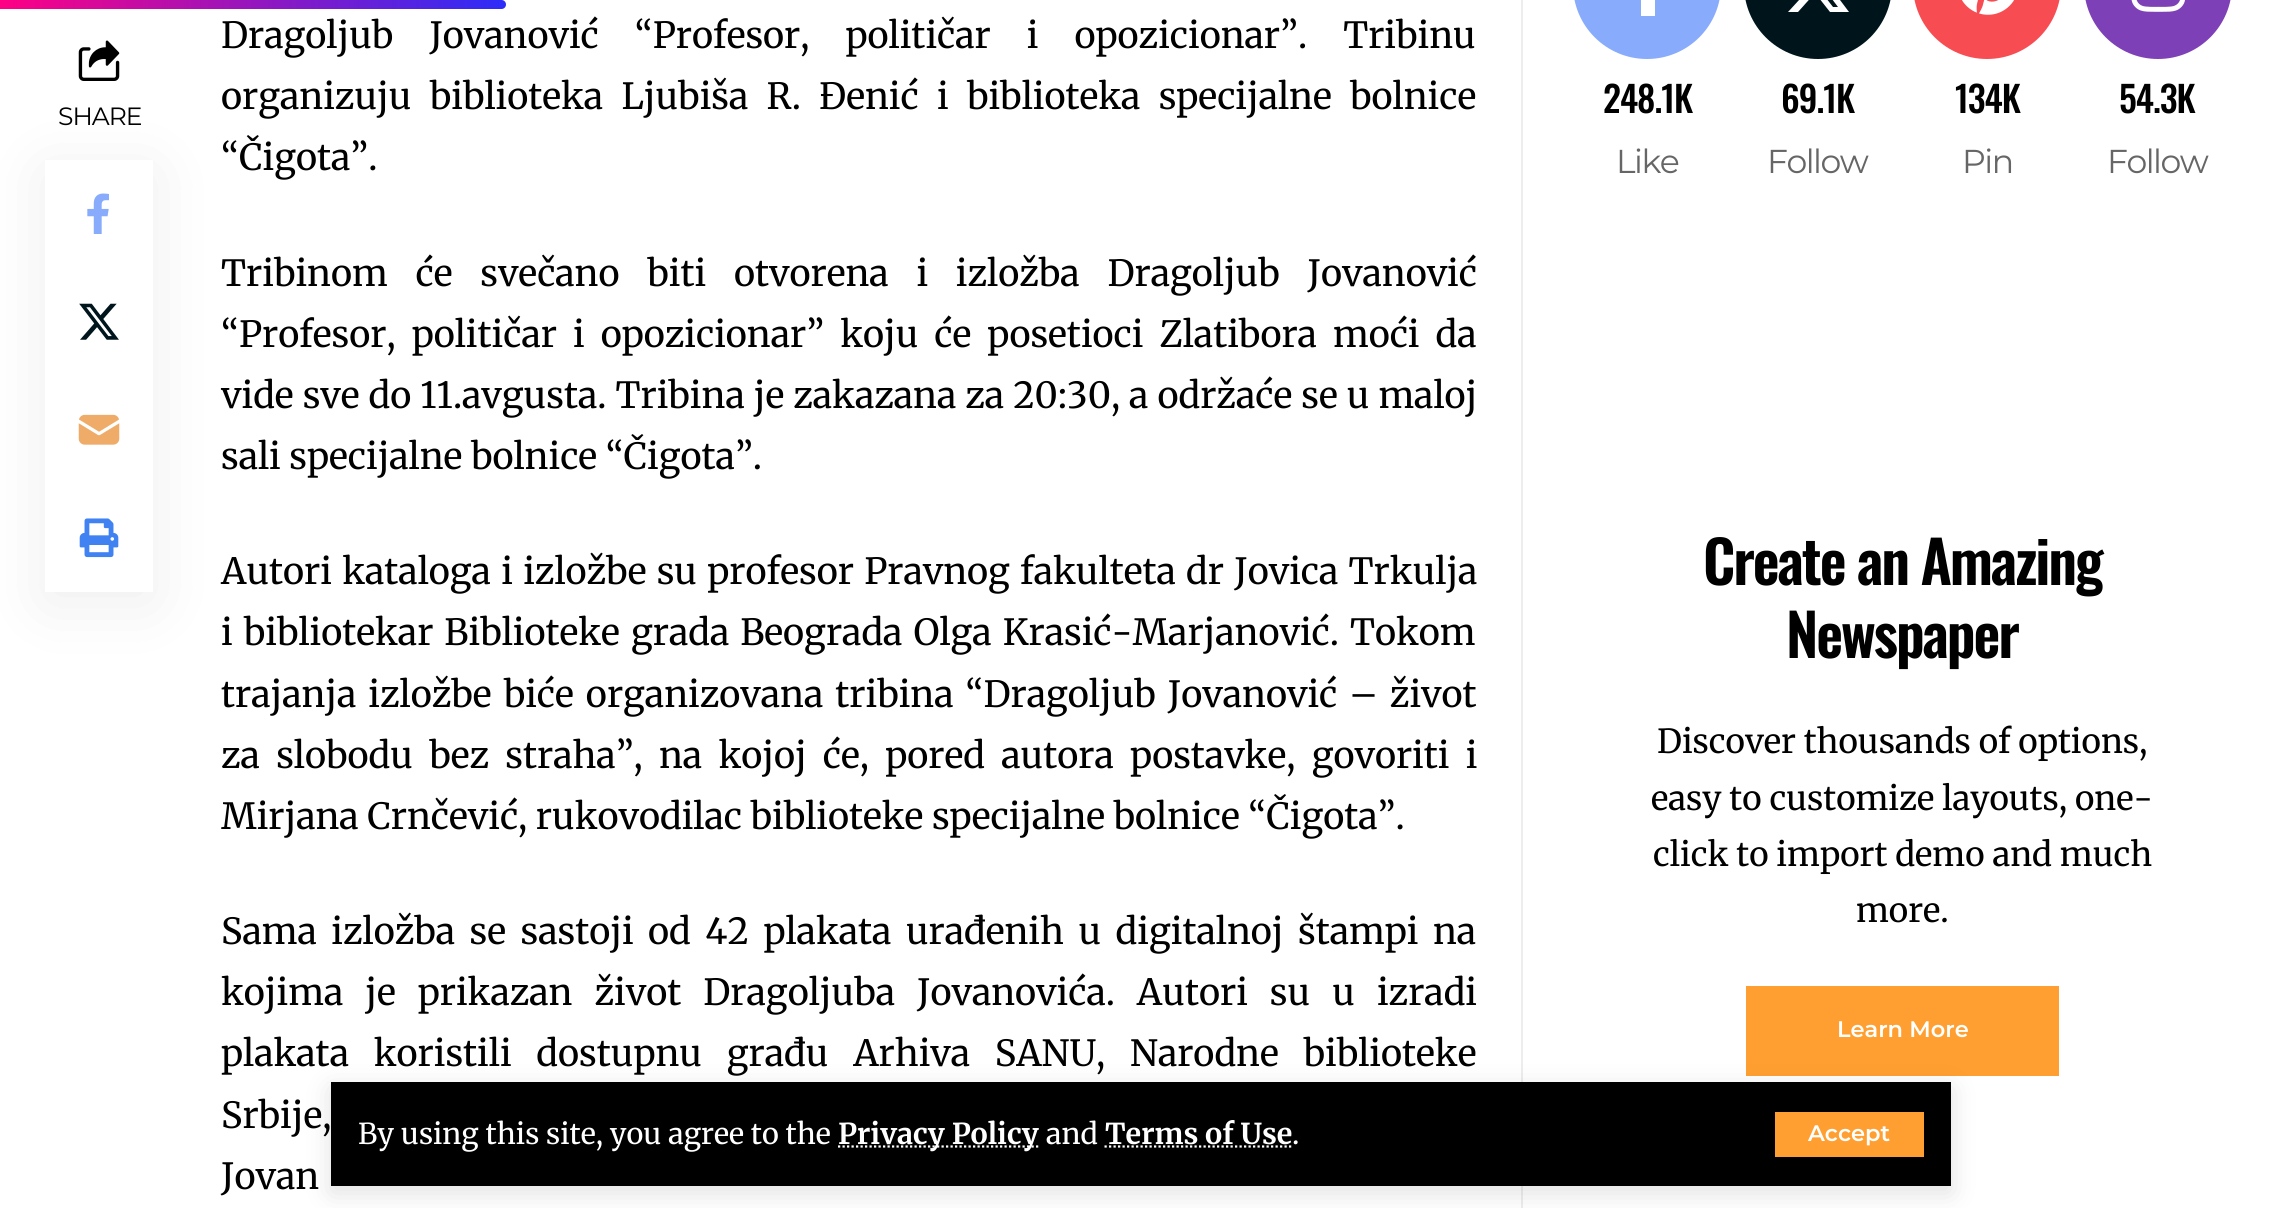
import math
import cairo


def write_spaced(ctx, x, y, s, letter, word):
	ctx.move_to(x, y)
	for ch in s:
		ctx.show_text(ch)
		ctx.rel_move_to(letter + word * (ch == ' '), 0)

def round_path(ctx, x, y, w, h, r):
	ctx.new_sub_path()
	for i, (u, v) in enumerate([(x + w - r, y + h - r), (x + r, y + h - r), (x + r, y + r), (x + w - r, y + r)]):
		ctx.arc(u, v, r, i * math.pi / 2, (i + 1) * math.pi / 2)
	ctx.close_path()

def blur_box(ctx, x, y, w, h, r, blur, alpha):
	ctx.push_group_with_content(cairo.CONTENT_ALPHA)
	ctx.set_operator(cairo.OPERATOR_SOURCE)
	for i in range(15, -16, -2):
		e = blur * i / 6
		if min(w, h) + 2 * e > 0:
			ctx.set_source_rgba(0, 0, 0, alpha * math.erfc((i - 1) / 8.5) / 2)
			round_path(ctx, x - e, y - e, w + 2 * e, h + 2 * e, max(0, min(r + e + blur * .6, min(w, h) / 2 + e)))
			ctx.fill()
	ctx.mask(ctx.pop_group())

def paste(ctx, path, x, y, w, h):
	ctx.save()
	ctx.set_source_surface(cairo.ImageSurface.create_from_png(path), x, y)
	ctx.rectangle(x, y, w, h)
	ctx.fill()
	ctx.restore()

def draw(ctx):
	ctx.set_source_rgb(1, 1, 1)
	ctx.paint()
	paste(ctx, 'media/5.png', 78, 40, 42, 41)
	ctx.set_source_rgb(0, 0, 0)
	blur_box(ctx, 45, 171, 108, 432, 0, 34, 0.07)
	ctx.set_source_rgb(1, 1, 1)
	ctx.rectangle(45, 160, 108, 432)
	ctx.fill()
	paste(ctx, 'media/1.png', 87, 193, 22, 41)
	paste(ctx, 'media/2.png', 79, 303, 40, 37)
	paste(ctx, 'media/3.png', 78, 414, 42, 31)
	paste(ctx, 'media/4.png', 79, 518, 40, 40)
	ctx.select_font_face('Montserrat')
	ctx.set_font_size(25)
	ctx.set_source_rgb(0, 0, 0)
	write_spaced(ctx, 58, 125, 'SHARE', -1, 0)
	ctx.select_font_face('Merriweather')
	ctx.set_font_size(36)
	write_spaced(ctx, 221, 48, 'Dragoljub Jovanović “Profesor, političar i opozicionar”. Tribinu', 0, 27.5)
	write_spaced(ctx, 221, 109, 'organizuju biblioteka Ljubiša R. Đenić i biblioteka specijalne bolnice', 0, 9.75)
	ctx.move_to(221, 170)
	ctx.show_text('“Čigota”.')
	write_spaced(ctx, 221, 286, 'Tribinom će svečano biti otvorena i izložba Dragoljub Jovanović', 0, 19.25)
	write_spaced(ctx, 221, 347, '“Profesor, političar i opozicionar” koju će posetioci Zlatibora moći da', 0, 7.5)
	write_spaced(ctx, 221, 408, 'vide sve do 11.avgusta. Tribina je zakazana za 20:30, a održaće se u maloj', 0, 0.5)
	ctx.move_to(221, 469)
	ctx.show_text('sali specijalne bolnice “Čigota”.')
	write_spaced(ctx, 221, 584, 'Autori kataloga i izložbe su profesor Pravnog fakulteta dr Jovica Trkulja', 0, 1.75)
	write_spaced(ctx, 221, 645, 'i bibliotekar Biblioteke grada Beograda Olga Krasić-Marjanović. Tokom', 0, 2.5)
	write_spaced(ctx, 221, 707, 'trajanja izložbe biće organizovana tribina “Dragoljub Jovanović – život', 0, 3.5)
	write_spaced(ctx, 221, 768, 'za slobodu bez straha”, na kojoj će, pored autora postavke, govoriti i', 0, 7.75)
	ctx.move_to(221, 829)
	ctx.show_text('Mirjana Crnčević, rukovodilac biblioteke specijalne bolnice “Čigota”.')
	write_spaced(ctx, 221, 944, 'Sama izložba se sastoji od 42 plakata urađenih u digitalnoj štampi na', 0, 6)
	write_spaced(ctx, 221, 1005, 'kojima je prikazan život Dragoljuba Jovanovića. Autori su u izradi', 0, 13.5)
	write_spaced(ctx, 221, 1066, 'plakata koristili dostupnu građu Arhiva SANU, Narodne biblioteke', 0, 16.25)
	write_spaced(ctx, 221, 1128, 'Srbije,', 0, 11)
	ctx.move_to(221, 1189)
	ctx.show_text('Jovan')
	ctx.set_source_rgb(0.929, 0.929, 0.929)
	ctx.rectangle(1521, 0, 2, 1208)
	ctx.fill()
	ctx.set_source_rgb(0.537, 0.671, 0.988)
	round_path(ctx, 1573, -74, 148, 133, 74)
	ctx.fill()
	ctx.set_source_rgb(1, 1, 1)
	ctx.rectangle(1641, 0, 14, 16)
	ctx.fill()
	ctx.select_font_face('Oswald Medium')
	ctx.set_source_rgb(0, 0, 0)
	write_spaced(ctx, 1603, 113, '248.1K', -1, 0)
	ctx.select_font_face('Montserrat')
	ctx.set_font_size(33.1)
	ctx.set_source_rgb(0.4, 0.4, 0.4)
	write_spaced(ctx, 1616, 173, 'Like', -1.5, 0)
	ctx.set_source_rgb(0, 0.082, 0.11)
	round_path(ctx, 1744, -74, 148, 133, 74)
	ctx.fill()
	ctx.set_source_rgb(1, 1, 1)
	ctx.new_path()
	ctx.move_to(1836, -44)
	ctx.line_to(1845, -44)
	ctx.line_to(1825, -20)
	ctx.line_to(1849, 12)
	ctx.line_to(1830, 12)
	ctx.line_to(1815, -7)
	ctx.line_to(1798, 12)
	ctx.line_to(1788, 12)
	ctx.line_to(1811, -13)
	ctx.line_to(1787, -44)
	ctx.line_to(1807, -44)
	ctx.line_to(1820, -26)
	ctx.close_path()
	ctx.move_to(1833, 7)
	ctx.line_to(1838, 7)
	ctx.line_to(1804, -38)
	ctx.line_to(1798, -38)
	ctx.close_path()
	ctx.fill()
	ctx.select_font_face('Oswald Medium')
	ctx.set_font_size(36)
	ctx.set_source_rgb(0, 0, 0)
	write_spaced(ctx, 1781, 113, '69.1K', -1, 0)
	ctx.select_font_face('Montserrat')
	ctx.set_font_size(33.1)
	ctx.set_source_rgb(0.4, 0.4, 0.4)
	write_spaced(ctx, 1767, 173, 'Follow', -1.5, 0)
	ctx.set_source_rgb(0.969, 0.298, 0.325)
	round_path(ctx, 1913, -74, 148, 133, 74)
	ctx.fill()
	paste(ctx, 'media/6.png', 1962, 0, 52, 15)
	ctx.select_font_face('Oswald Medium')
	ctx.set_font_size(36)
	ctx.set_source_rgb(0, 0, 0)
	write_spaced(ctx, 1955, 113, '134K', -1, 0)
	ctx.select_font_face('Montserrat')
	ctx.set_font_size(33.1)
	ctx.set_source_rgb(0.4, 0.4, 0.4)
	write_spaced(ctx, 1962, 173, 'Pin', -1.5, 0)
	ctx.set_source_rgb(0.494, 0.251, 0.714)
	round_path(ctx, 2084, -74, 148, 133, 74)
	ctx.fill()
	paste(ctx, 'media/7.png', 2131, 0, 54, 12)
	ctx.select_font_face('Oswald Medium')
	ctx.set_font_size(36)
	ctx.set_source_rgb(0, 0, 0)
	write_spaced(ctx, 2119, 113, '54.3K', -1, 0)
	ctx.select_font_face('Montserrat')
	ctx.set_font_size(33.1)
	ctx.set_source_rgb(0.4, 0.4, 0.4)
	write_spaced(ctx, 2107, 173, 'Follow', -1.5, 0)
	ctx.select_font_face('Oswald SemiBold')
	ctx.set_font_size(58.5)
	ctx.set_source_rgb(0, 0, 0)
	write_spaced(ctx, 1703, 585, 'Create an Amazing', -2.1, 0)
	write_spaced(ctx, 1786, 658, 'Newspaper', -2.1, 0)
	ctx.select_font_face('Merriweather')
	ctx.set_font_size(33.1)
	for x, y, s in [
		(1657, 753, 'Discover thousands of options,'),
		(1651, 810, 'easy to customize layouts, one-'),
		(1653, 866, 'click to import demo and much'),
		(1856, 922, 'more.'),
	]:
		ctx.move_to(x, y)
		ctx.show_text(s)
	ctx.set_source_rgb(1, 0.624, 0.192)
	ctx.rectangle(1746, 986, 313, 90)
	ctx.fill()
	ctx.select_font_face('Montserrat SemiBold')
	ctx.set_font_size(22.5)
	ctx.set_source_rgb(1, 1, 1)
	ctx.move_to(1837, 1037)
	ctx.show_text('Learn More')
	gradient = cairo.LinearGradient(0, 4.5, 506, 4.5)
	gradient.add_color_stop_rgba(0, 1, 0, 0.518, 1)
	gradient.add_color_stop_rgba(1, 0.173, 0.173, 0.973, 1)
	ctx.set_source(gradient)
	ctx.new_path()
	ctx.move_to(0, 0)
	ctx.line_to(501.5, 0)
	ctx.curve_to(504, 0, 506, 2, 506, 4.5)
	ctx.curve_to(506, 7, 504, 9, 501.5, 9)
	ctx.line_to(0, 9)
	ctx.close_path()
	ctx.fill()
	ctx.set_source_rgb(0, 0, 0)
	blur_box(ctx, 331, 1089, 1620, 104, 0, 13.5, 0.12)
	ctx.set_source_rgb(0, 0, 0)
	ctx.rectangle(331, 1082, 1620, 104)
	ctx.fill()
	ctx.select_font_face('Merriweather')
	ctx.set_font_size(28.75)
	ctx.set_source_rgb(1, 1, 1)
	ctx.move_to(358, 1144)
	ctx.show_text('By using this site, you agree to the')
	ctx.new_path()
	ctx.move_to(838, 1146.5)
	ctx.line_to(1039, 1146.5)
	ctx.set_line_width(2.2)
	ctx.set_dash([2.25, 2.25])
	ctx.stroke()
	ctx.select_font_face('Merriweather', cairo.FONT_SLANT_NORMAL, cairo.FONT_WEIGHT_BOLD)
	ctx.move_to(838, 1144)
	ctx.show_text('Privacy Policy')
	ctx.select_font_face('Merriweather')
	ctx.move_to(1046, 1144)
	ctx.show_text('and')
	ctx.select_font_face('Merriweather', cairo.FONT_SLANT_NORMAL, cairo.FONT_WEIGHT_BOLD)
	ctx.move_to(1105, 1144)
	ctx.show_text('Terms of Use')
	ctx.new_path()
	ctx.move_to(1104.5, 1146.5)
	ctx.line_to(1292.5, 1146.5)
	ctx.stroke()
	ctx.select_font_face('Merriweather')
	ctx.move_to(1292, 1144)
	ctx.show_text('.')
	ctx.set_source_rgb(1, 0.624, 0.192)
	ctx.rectangle(1775, 1112, 149, 45)
	ctx.fill()
	ctx.select_font_face('Montserrat SemiBold')
	ctx.set_font_size(22.5)
	ctx.set_source_rgb(1, 1, 1)
	ctx.move_to(1808, 1141)
	ctx.show_text('Accept')


surface = cairo.ImageSurface(cairo.FORMAT_RGB24, 2280, 1208)
ctx = cairo.Context(surface)
options = cairo.FontOptions()
options.set_hint_metrics(cairo.HINT_METRICS_OFF)
options.set_hint_style(cairo.HINT_STYLE_NONE)
ctx.set_font_options(options)
ctx.set_miter_limit(4)
draw(ctx)
surface.write_to_png('image.png')
